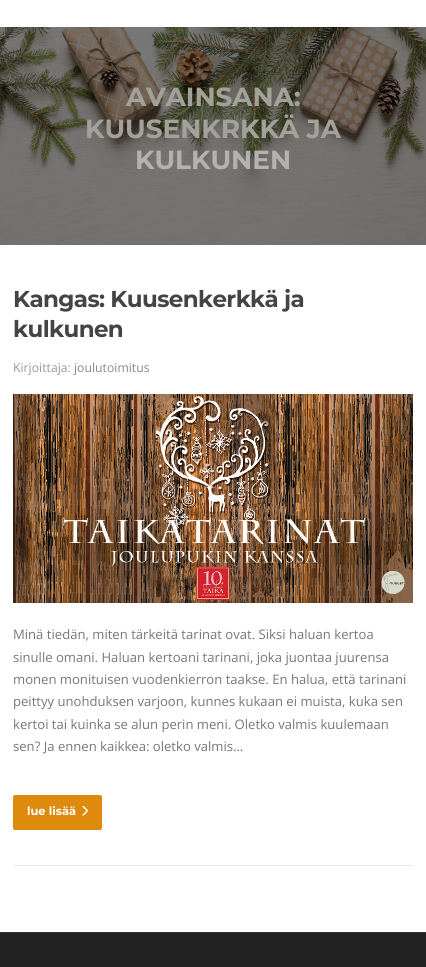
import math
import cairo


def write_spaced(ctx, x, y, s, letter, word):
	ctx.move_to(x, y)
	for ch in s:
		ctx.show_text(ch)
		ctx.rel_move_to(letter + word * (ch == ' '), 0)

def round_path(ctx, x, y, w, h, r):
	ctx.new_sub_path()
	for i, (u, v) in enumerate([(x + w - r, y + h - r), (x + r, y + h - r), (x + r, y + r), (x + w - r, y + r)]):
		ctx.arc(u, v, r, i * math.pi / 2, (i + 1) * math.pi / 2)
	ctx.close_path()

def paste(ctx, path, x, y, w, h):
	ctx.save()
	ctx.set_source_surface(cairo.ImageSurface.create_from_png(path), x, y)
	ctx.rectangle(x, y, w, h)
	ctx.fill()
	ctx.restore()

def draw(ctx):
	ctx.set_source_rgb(1, 1, 1)
	ctx.paint()
	paste(ctx, 'media/1.png', 0, 27, 426, 218)
	ctx.select_font_face('Montserrat', cairo.FONT_SLANT_NORMAL, cairo.FONT_WEIGHT_BOLD)
	ctx.set_font_size(26.25)
	ctx.set_source_rgb(0.639, 0.635, 0.604)
	ctx.move_to(126, 106)
	ctx.show_text('AVAINSANA:')
	ctx.move_to(85, 138)
	ctx.show_text('KUUSENKRKKÄ JA')
	ctx.set_source_rgb(0.702, 0.698, 0.694)
	ctx.move_to(135, 169)
	ctx.show_text('KULKUNEN')
	ctx.set_source_rgb(0.914, 0.914, 0.914)
	ctx.rectangle(13, 865, 400, 1)
	ctx.fill()
	ctx.set_font_size(23)
	ctx.set_source_rgb(0.267, 0.267, 0.267)
	write_spaced(ctx, 13, 307, 'Kangas: Kuusenkerkkä ja', -0.6, 0)
	write_spaced(ctx, 13, 337, 'kulkunen', -0.6, 0)
	ctx.select_font_face('Open Sans')
	ctx.set_font_size(12.25)
	ctx.set_source_rgb(0.6, 0.6, 0.6)
	ctx.move_to(13, 372)
	ctx.show_text('Kirjoittaja:')
	ctx.set_source_rgb(0.533, 0.533, 0.533)
	ctx.move_to(74, 372)
	ctx.show_text('joulutoimitus')
	paste(ctx, 'media/2.png', 13, 394, 400, 209)
	ctx.set_font_size(13.1)
	ctx.set_source_rgb(0.467, 0.467, 0.467)
	for x, y, s in [
		(13, 639, 'Minä tiedän, miten tärkeitä tarinat ovat. Siksi haluan kertoa'),
		(13, 662, 'sinulle omani. Haluan kertoani tarinani, joka juontaa juurensa'),
		(13, 684, 'monen monituisen vuodenkierron taakse. En halua, että tarinani'),
		(13, 706, 'peittyy unohduksen varjoon, kunnes kukaan ei muista, kuka sen'),
		(13, 729, 'kertoi tai kuinka se alun perin meni. Oletko valmis kuulemaan'),
		(13, 751, 'sen? Ja ennen kaikkea: oletko valmis…'),
	]:
		ctx.move_to(x, y)
		ctx.show_text(s)
	ctx.set_source_rgb(0.867, 0.541, 0.051)
	round_path(ctx, 13, 795, 89, 35, 2)
	ctx.fill()
	ctx.select_font_face('Montserrat', cairo.FONT_SLANT_NORMAL, cairo.FONT_WEIGHT_BOLD)
	ctx.set_font_size(11.5)
	ctx.set_source_rgb(1, 1, 1)
	ctx.move_to(27, 815)
	ctx.show_text('lue lisää')
	paste(ctx, 'media/3.png', 82, 805, 7, 11)
	ctx.set_source_rgb(0.133, 0.133, 0.133)
	ctx.rectangle(0, 933, 426, 34)
	ctx.fill()
	ctx.set_source_rgb(0.2, 0.2, 0.2)
	ctx.rectangle(0, 932, 426, 1)
	ctx.fill()


surface = cairo.ImageSurface(cairo.FORMAT_RGB24, 426, 967)
ctx = cairo.Context(surface)
options = cairo.FontOptions()
options.set_hint_metrics(cairo.HINT_METRICS_OFF)
options.set_hint_style(cairo.HINT_STYLE_NONE)
ctx.set_font_options(options)
ctx.set_miter_limit(4)
draw(ctx)
surface.write_to_png('image.png')
